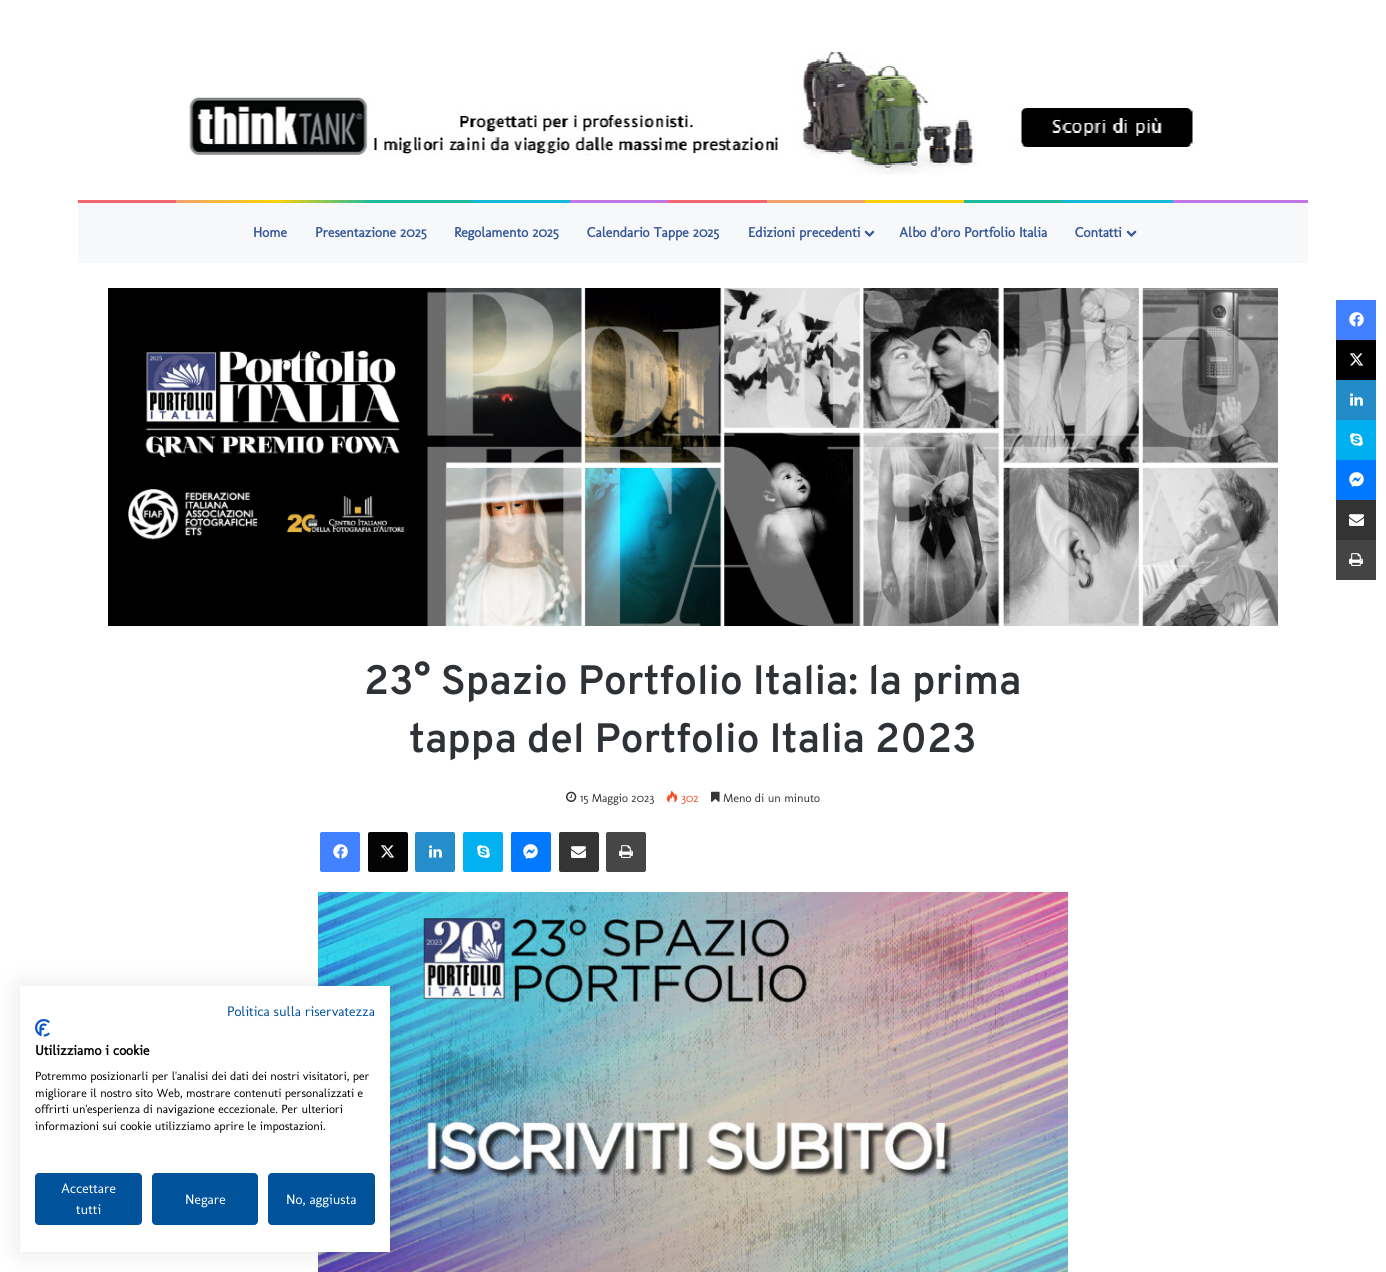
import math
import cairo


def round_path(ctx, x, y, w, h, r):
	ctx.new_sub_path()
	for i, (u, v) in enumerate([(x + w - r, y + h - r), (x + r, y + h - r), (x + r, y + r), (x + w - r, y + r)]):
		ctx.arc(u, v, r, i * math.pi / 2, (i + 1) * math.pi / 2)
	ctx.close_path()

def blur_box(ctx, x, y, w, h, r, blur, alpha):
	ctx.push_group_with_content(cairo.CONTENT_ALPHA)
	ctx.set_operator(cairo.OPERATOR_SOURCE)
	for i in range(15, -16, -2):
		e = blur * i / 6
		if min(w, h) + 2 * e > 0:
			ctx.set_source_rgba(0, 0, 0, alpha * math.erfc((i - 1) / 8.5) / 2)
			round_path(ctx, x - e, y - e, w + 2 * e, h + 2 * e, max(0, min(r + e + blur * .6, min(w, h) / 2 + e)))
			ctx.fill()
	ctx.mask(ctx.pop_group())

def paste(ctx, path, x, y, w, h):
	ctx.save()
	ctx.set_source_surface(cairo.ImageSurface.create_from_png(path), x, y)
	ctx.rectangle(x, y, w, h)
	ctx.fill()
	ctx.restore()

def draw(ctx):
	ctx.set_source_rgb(1, 1, 1)
	ctx.paint()
	paste(ctx, 'media/1.png', 189, 52, 1004, 122)
	gradient = cairo.LinearGradient(78, 202, 1308, 201)
	gradient.add_color_stop_rgba(0, 0.969, 0.396, 0.439, 1)
	gradient.add_color_stop_rgba(0.08, 0.969, 0.396, 0.439, 1)
	gradient.add_color_stop_rgba(0.08, 0.953, 0.643, 0.42, 1)
	gradient.add_color_stop_rgba(0.16, 1, 0.824, 0.02, 1)
	gradient.add_color_stop_rgba(0.24, 0.106, 0.737, 0.608, 1)
	gradient.add_color_stop_rgba(0.32, 0.106, 0.737, 0.608, 1)
	gradient.add_color_stop_rgba(0.32, 0.078, 0.725, 0.835, 1)
	gradient.add_color_stop_rgba(0.4, 0.078, 0.725, 0.835, 1)
	gradient.add_color_stop_rgba(0.4, 0.765, 0.467, 0.894, 1)
	gradient.add_color_stop_rgba(0.48, 0.765, 0.467, 0.894, 1)
	gradient.add_color_stop_rgba(0.48, 0.969, 0.396, 0.439, 1)
	gradient.add_color_stop_rgba(0.56, 0.969, 0.396, 0.439, 1)
	gradient.add_color_stop_rgba(0.56, 0.953, 0.643, 0.42, 1)
	gradient.add_color_stop_rgba(0.64, 0.953, 0.643, 0.42, 1)
	gradient.add_color_stop_rgba(0.64, 1, 0.824, 0.02, 1)
	gradient.add_color_stop_rgba(0.72, 1, 0.824, 0.02, 1)
	gradient.add_color_stop_rgba(0.72, 0.106, 0.737, 0.608, 1)
	gradient.add_color_stop_rgba(0.8, 0.106, 0.737, 0.608, 1)
	gradient.add_color_stop_rgba(0.8, 0.078, 0.725, 0.835, 1)
	gradient.add_color_stop_rgba(0.89, 0.078, 0.725, 0.835, 1)
	gradient.add_color_stop_rgba(0.89, 0.765, 0.467, 0.894, 1)
	gradient.add_color_stop_rgba(1, 0.765, 0.467, 0.894, 1)
	ctx.set_source(gradient)
	ctx.rectangle(78, 200, 1230, 3)
	ctx.fill()
	ctx.set_source_rgb(0.965, 0.969, 0.976)
	ctx.rectangle(78, 203, 1230, 60)
	ctx.fill()
	ctx.select_font_face('Molengo', cairo.FONT_SLANT_NORMAL, cairo.FONT_WEIGHT_BOLD)
	ctx.set_font_size(14)
	ctx.set_source_rgb(0.212, 0.345, 0.6)
	for x, y, s in [
		(253, 237, 'Home'),
		(315, 237, 'Presentazione 2025'),
		(454, 237, 'Regolamento 2025'),
		(587, 237, 'Calendario Tappe 2025'),
		(748, 237, 'Edizioni precedenti'),
	]:
		ctx.move_to(x, y)
		ctx.show_text(s)
	paste(ctx, 'media/2.png', 864, 230, 11, 7)
	ctx.move_to(899, 237)
	ctx.show_text('Albo d’oro Portfolio Italia')
	ctx.move_to(1075, 237)
	ctx.show_text('Contatti')
	paste(ctx, 'media/2.png', 1126, 230, 11, 7)
	paste(ctx, 'media/3.png', 108, 288, 1170, 338)
	ctx.set_source_rgb(0.251, 0.502, 1)
	ctx.rectangle(1336, 300, 40, 40)
	ctx.fill()
	paste(ctx, 'media/4.png', 1349, 312, 15, 15)
	ctx.set_source_rgb(0, 0, 0)
	ctx.rectangle(1336, 340, 40, 40)
	ctx.fill()
	paste(ctx, 'media/5.png', 1349, 353, 15, 13)
	ctx.set_source_rgb(0.137, 0.549, 0.784)
	ctx.rectangle(1336, 380, 40, 40)
	ctx.fill()
	paste(ctx, 'media/6.png', 1350, 393, 13, 13)
	ctx.set_source_rgb(0, 0.686, 0.941)
	ctx.rectangle(1336, 420, 40, 40)
	ctx.fill()
	paste(ctx, 'media/7.png', 1350, 433, 13, 13)
	ctx.set_source_rgb(0, 0.471, 1)
	ctx.rectangle(1336, 460, 40, 40)
	ctx.fill()
	paste(ctx, 'media/8.png', 1349, 472, 15, 15)
	ctx.set_source_rgb(0.2, 0.2, 0.2)
	ctx.rectangle(1336, 500, 40, 40)
	ctx.fill()
	paste(ctx, 'media/9.png', 1349, 514, 15, 12)
	ctx.set_source_rgb(0.267, 0.267, 0.267)
	ctx.rectangle(1336, 540, 40, 40)
	ctx.fill()
	paste(ctx, 'media/10.png', 1349, 553, 14, 13)
	ctx.select_font_face('Overpass SemiBold')
	ctx.set_font_size(41)
	ctx.set_source_rgb(0.18, 0.192, 0.212)
	ctx.move_to(364, 694)
	ctx.show_text('23° Spazio Portfolio Italia: la prima')
	ctx.move_to(409, 752)
	ctx.show_text('tappa del Portfolio Italia 2023')
	paste(ctx, 'media/11.png', 566, 791, 11, 11)
	ctx.select_font_face('Molengo')
	ctx.set_font_size(12)
	ctx.set_source_rgb(0.208, 0.208, 0.208)
	ctx.move_to(580, 802)
	ctx.show_text('15 Maggio 2023')
	paste(ctx, 'media/12.png', 666, 790, 12, 13)
	ctx.set_source_rgb(0.953, 0.322, 0.173)
	ctx.move_to(681, 802)
	ctx.show_text('302')
	paste(ctx, 'media/13.png', 711, 791, 9, 11)
	ctx.set_source_rgb(0.208, 0.208, 0.208)
	ctx.move_to(723, 802)
	ctx.show_text('Meno di un minuto')
	ctx.set_source_rgb(0.259, 0.506, 1)
	round_path(ctx, 320, 832, 40, 40, 2)
	ctx.fill()
	paste(ctx, 'media/14.png', 333, 844, 15, 15)
	ctx.set_source_rgb(0.012, 0.012, 0.012)
	round_path(ctx, 368, 832, 40, 40, 2)
	ctx.fill()
	paste(ctx, 'media/15.png', 380, 845, 15, 13)
	ctx.set_source_rgb(0.145, 0.553, 0.788)
	round_path(ctx, 415, 832, 40, 40, 2)
	ctx.fill()
	paste(ctx, 'media/16.png', 429, 845, 13, 13)
	ctx.set_source_rgb(0.012, 0.69, 0.941)
	round_path(ctx, 463, 832, 40, 40, 2)
	ctx.fill()
	paste(ctx, 'media/17.png', 477, 845, 13, 13)
	ctx.set_source_rgb(0.012, 0.475, 1)
	round_path(ctx, 511, 832, 40, 40, 2)
	ctx.fill()
	paste(ctx, 'media/18.png', 523, 844, 15, 15)
	ctx.set_source_rgb(0.208, 0.208, 0.208)
	round_path(ctx, 559, 832, 40, 40, 2)
	ctx.fill()
	paste(ctx, 'media/19.png', 571, 846, 15, 12)
	ctx.set_source_rgb(0.275, 0.275, 0.275)
	round_path(ctx, 606, 832, 40, 40, 2)
	ctx.fill()
	paste(ctx, 'media/20.png', 619, 845, 14, 13)
	paste(ctx, 'media/21.png', 318, 892, 750, 380)
	ctx.set_source_rgb(0, 0, 0)
	blur_box(ctx, 20, 986, 370, 266, 0, 12, 0.1)
	ctx.set_source_rgb(1, 1, 1)
	ctx.rectangle(20, 986, 370, 266)
	ctx.fill()
	ctx.set_font_size(14)
	ctx.set_source_rgb(0, 0.325, 0.608)
	ctx.move_to(227, 1016)
	ctx.show_text('Politica sulla riservatezza')
	paste(ctx, 'media/22.png', 35, 1019, 15, 18)
	ctx.select_font_face('Molengo', cairo.FONT_SLANT_NORMAL, cairo.FONT_WEIGHT_BOLD)
	ctx.set_source_rgb(0, 0, 0)
	ctx.move_to(35, 1055)
	ctx.show_text('Utilizziamo i cookie')
	ctx.select_font_face('Molengo')
	ctx.set_font_size(12)
	for x, y, s in [
		(35, 1080, 'Potremmo posizionarli per l\'analisi dei dati dei nostri visitatori, per'),
		(35, 1097, 'migliorare il nostro sito Web, mostrare contenuti personalizzati e'),
		(35, 1113, 'offrirti un\'esperienza di navigazione eccezionale. Per ulteriori'),
		(35, 1130, 'informazioni sui cookie utilizziamo aprire le impostazioni.'),
	]:
		ctx.move_to(x, y)
		ctx.show_text(s)
	ctx.set_source_rgb(0, 0.325, 0.608)
	round_path(ctx, 35.5, 1173.5, 106, 51, 3.5)
	ctx.fill_preserve()
	ctx.set_line_width(1)
	ctx.stroke()
	ctx.set_font_size(14)
	ctx.set_source_rgb(1, 1, 1)
	ctx.move_to(61, 1193)
	ctx.show_text('Accettare')
	ctx.move_to(76, 1214)
	ctx.show_text('tutti')
	ctx.set_source_rgb(0, 0.325, 0.608)
	round_path(ctx, 152.5, 1173.5, 105, 51, 3.5)
	ctx.fill_preserve()
	ctx.stroke()
	ctx.set_source_rgb(1, 1, 1)
	ctx.move_to(185, 1204)
	ctx.show_text('Negare')
	ctx.set_source_rgb(0, 0.325, 0.608)
	round_path(ctx, 268.5, 1173.5, 106, 51, 3.5)
	ctx.fill_preserve()
	ctx.stroke()
	ctx.set_source_rgb(1, 1, 1)
	ctx.move_to(286, 1204)
	ctx.show_text('No, aggiusta')


surface = cairo.ImageSurface(cairo.FORMAT_RGB24, 1386, 1272)
ctx = cairo.Context(surface)
options = cairo.FontOptions()
options.set_hint_metrics(cairo.HINT_METRICS_OFF)
options.set_hint_style(cairo.HINT_STYLE_NONE)
ctx.set_font_options(options)
ctx.set_miter_limit(4)
draw(ctx)
surface.write_to_png('image.png')
